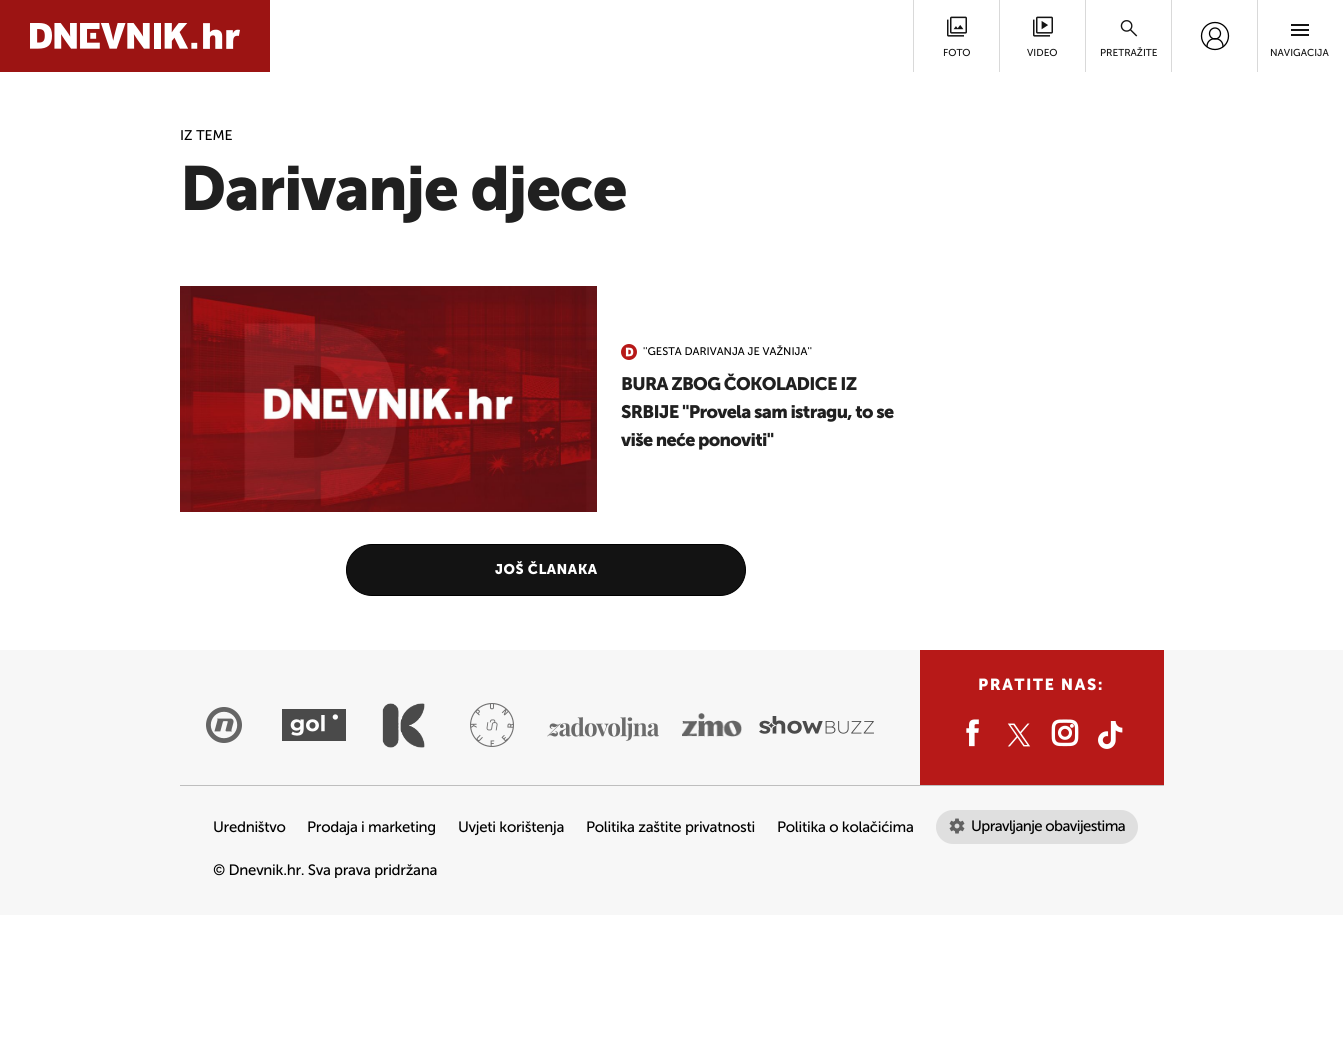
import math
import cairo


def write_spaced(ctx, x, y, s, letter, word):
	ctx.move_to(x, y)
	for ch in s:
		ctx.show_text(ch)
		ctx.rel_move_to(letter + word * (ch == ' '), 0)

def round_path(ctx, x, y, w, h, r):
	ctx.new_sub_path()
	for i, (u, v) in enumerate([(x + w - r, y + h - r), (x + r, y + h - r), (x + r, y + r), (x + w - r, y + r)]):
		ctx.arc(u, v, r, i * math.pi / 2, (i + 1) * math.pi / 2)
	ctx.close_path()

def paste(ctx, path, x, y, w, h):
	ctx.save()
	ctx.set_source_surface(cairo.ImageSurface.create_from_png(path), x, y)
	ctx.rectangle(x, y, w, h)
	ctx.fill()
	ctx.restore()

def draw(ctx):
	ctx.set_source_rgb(1, 1, 1)
	ctx.paint()
	ctx.set_source_rgb(0.612, 0.082, 0.078)
	ctx.rectangle(0, 0, 270, 72)
	ctx.fill()
	paste(ctx, 'media/1.png', 30, 23, 210, 26)
	ctx.set_source_rgb(0.851, 0.851, 0.851)
	ctx.rectangle(913, 0, 1, 72)
	ctx.fill()
	paste(ctx, 'media/2.png', 947, 16, 20, 21)
	ctx.select_font_face('Museo Sans')
	ctx.set_font_size(10)
	ctx.set_source_rgb(0.078, 0.078, 0.078)
	ctx.move_to(943, 56)
	ctx.show_text('FOTO')
	ctx.set_source_rgb(0.851, 0.851, 0.851)
	ctx.rectangle(999, 0, 1, 72)
	ctx.fill()
	paste(ctx, 'media/3.png', 1033, 16, 20, 21)
	ctx.set_source_rgb(0.078, 0.078, 0.078)
	ctx.move_to(1027, 56)
	ctx.show_text('VIDEO')
	ctx.set_source_rgb(0.851, 0.851, 0.851)
	ctx.rectangle(1085, 0, 1, 72)
	ctx.fill()
	paste(ctx, 'media/4.png', 1120, 20, 18, 17)
	ctx.set_source_rgb(0.078, 0.078, 0.078)
	ctx.move_to(1100, 56)
	ctx.show_text('PRETRAŽITE')
	ctx.set_source_rgb(0.851, 0.851, 0.851)
	ctx.rectangle(1171, 0, 1, 72)
	ctx.fill()
	ctx.new_path()
	ctx.move_to(1223, 46.5)
	ctx.curve_to(1223, 36, 1207, 36, 1207, 46.5)
	ctx.set_source_rgb(0, 0, 0)
	ctx.set_line_width(1.3)
	ctx.set_line_cap(cairo.LINE_CAP_ROUND)
	ctx.set_line_join(cairo.LINE_JOIN_ROUND)
	ctx.stroke()
	ctx.arc(1215, 33.5, 5.5, 0, 2 * math.pi)
	ctx.set_line_cap(cairo.LINE_CAP_BUTT)
	ctx.set_line_join(cairo.LINE_JOIN_MITER)
	ctx.stroke()
	ctx.arc(1215, 36, 13.5, 0, 2 * math.pi)
	ctx.stroke()
	ctx.set_source_rgb(0.851, 0.851, 0.851)
	ctx.rectangle(1257, 0, 1, 72)
	ctx.fill()
	ctx.set_source_rgb(0.078, 0.078, 0.078)
	ctx.rectangle(1291, 29, 18, 2)
	ctx.rectangle(1291, 24, 18, 2)
	ctx.rectangle(1291, 34, 18, 2)
	ctx.fill()
	ctx.move_to(1270, 56)
	ctx.show_text('NAVIGACIJA')
	ctx.set_font_size(14)
	ctx.set_source_rgb(0, 0, 0)
	ctx.move_to(180, 140)
	ctx.show_text('IZ TEME')
	ctx.select_font_face('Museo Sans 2')
	ctx.set_font_size(62)
	ctx.set_source_rgb(0.125, 0.125, 0.125)
	write_spaced(ctx, 180, 210, 'Darivanje djece', -1.25, 0)
	paste(ctx, 'media/5.png', 180, 286, 417, 226)
	paste(ctx, 'media/6.png', 621, 344, 16, 16)
	ctx.select_font_face('Museo Sans')
	ctx.set_font_size(11)
	ctx.set_source_rgb(0, 0, 0)
	ctx.move_to(643, 355)
	ctx.show_text('\'\'GESTA DARIVANJA JE VAŽNIJA\'\'')
	ctx.select_font_face('Museo Sans 2')
	ctx.set_font_size(18)
	ctx.set_source_rgb(0.125, 0.125, 0.125)
	for x, y, s in [
		(621, 390, 'BURA ZBOG ČOKOLADICE IZ'),
		(621, 418, 'SRBIJE "Provela sam istragu, to se'),
		(621, 446, 'više neće ponoviti"'),
	]:
		write_spaced(ctx, x, y, s, -0.7, 0)
	ctx.set_source_rgb(0.078, 0.078, 0.078)
	round_path(ctx, 346.5, 544.5, 399, 51, 25.5)
	ctx.fill_preserve()
	ctx.set_source_rgb(0, 0, 0)
	ctx.set_line_width(1)
	ctx.stroke()
	ctx.set_font_size(14)
	ctx.set_source_rgb(1, 1, 1)
	write_spaced(ctx, 495, 574, 'JOŠ ČLANAKA', 0.5, 0)
	ctx.set_source_rgb(0.965, 0.965, 0.965)
	ctx.rectangle(0, 650, 1343, 265)
	ctx.fill()
	ctx.set_source_rgb(0.745, 0.745, 0.745)
	ctx.rectangle(180, 785, 984, 1)
	ctx.fill()
	ctx.set_source_rgb(0.718, 0.098, 0.094)
	ctx.rectangle(920, 650, 244, 135)
	ctx.fill()
	ctx.set_font_size(16)
	ctx.set_source_rgb(1, 1, 1)
	write_spaced(ctx, 978, 690, 'PRATITE NAS:', 1.6, 0)
	paste(ctx, 'media/7.png', 966, 719, 13, 28)
	paste(ctx, 'media/8.png', 1007, 723, 24, 24)
	paste(ctx, 'media/9.png', 1051, 719, 28, 28)
	paste(ctx, 'media/10.png', 1098, 721, 25, 28)
	paste(ctx, 'media/11.png', 206, 707, 36, 36)
	paste(ctx, 'media/12.png', 282, 709, 64, 32)
	paste(ctx, 'media/13.png', 382, 703, 43, 45)
	paste(ctx, 'media/14.png', 470, 703, 44, 44)
	paste(ctx, 'media/15.png', 547, 717, 112, 24)
	paste(ctx, 'media/16.png', 682, 713, 60, 24)
	paste(ctx, 'media/17.png', 759, 716, 115, 18)
	ctx.select_font_face('Museo Sans')
	ctx.set_font_size(15)
	ctx.set_source_rgb(0, 0, 0)
	for x, y, s in [
		(213, 832, 'Uredništvo'),
		(307, 832, 'Prodaja i marketing'),
		(458, 832, 'Uvjeti korištenja'),
		(586, 832, 'Politika zaštite privatnosti'),
		(777, 832, 'Politika o kolačićima'),
	]:
		write_spaced(ctx, x, y, s, -0.3, 0)
	ctx.set_source_rgb(0.875, 0.875, 0.875)
	round_path(ctx, 936, 810, 202, 34, 17)
	ctx.fill()
	paste(ctx, 'media/18.png', 949, 818, 16, 16)
	ctx.set_source_rgb(0, 0, 0)
	write_spaced(ctx, 971, 831, 'Upravljanje obavijestima', -0.6, 0)
	write_spaced(ctx, 213, 875, '© Dnevnik.hr. Sva prava pridržana', -0.3, 0)


surface = cairo.ImageSurface(cairo.FORMAT_RGB24, 1343, 1054)
ctx = cairo.Context(surface)
options = cairo.FontOptions()
options.set_hint_metrics(cairo.HINT_METRICS_OFF)
options.set_hint_style(cairo.HINT_STYLE_NONE)
ctx.set_font_options(options)
ctx.set_miter_limit(4)
draw(ctx)
surface.write_to_png('image.png')
